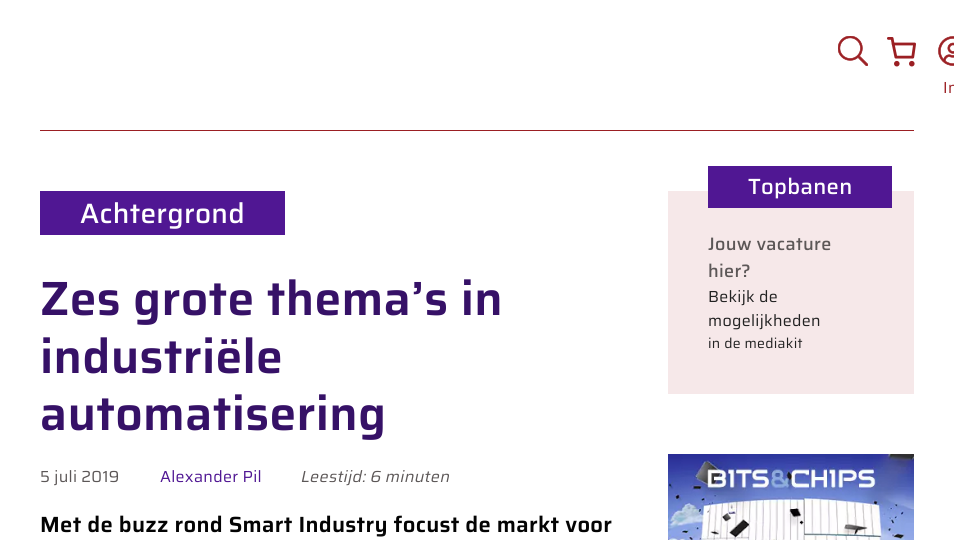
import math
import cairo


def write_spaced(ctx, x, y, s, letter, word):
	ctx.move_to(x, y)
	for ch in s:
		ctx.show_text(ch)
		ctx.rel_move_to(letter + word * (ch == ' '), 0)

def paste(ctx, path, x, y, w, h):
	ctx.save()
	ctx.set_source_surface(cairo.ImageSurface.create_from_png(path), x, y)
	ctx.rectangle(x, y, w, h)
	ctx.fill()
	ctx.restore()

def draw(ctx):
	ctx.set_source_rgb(1, 1, 1)
	ctx.paint()
	paste(ctx, 'media/1.png', 838, 36, 30, 30)
	paste(ctx, 'media/2.png', 887, 37, 29, 30)
	paste(ctx, 'media/3.png', 938, 36, 16, 30)
	ctx.select_font_face('Saira')
	ctx.set_font_size(16)
	ctx.set_source_rgb(0.608, 0.122, 0.137)
	write_spaced(ctx, 943, 93, 'In', 0.3, 0)
	ctx.rectangle(40, 130, 874, 1)
	ctx.fill()
	ctx.set_source_rgb(0.314, 0.09, 0.576)
	ctx.rectangle(40, 191, 245, 44)
	ctx.fill()
	ctx.select_font_face('Saira Medium')
	ctx.set_font_size(28)
	ctx.set_source_rgb(1, 1, 1)
	write_spaced(ctx, 80, 223, 'Achtergrond', 0.3, 0)
	ctx.select_font_face('Saira SemiBold')
	ctx.set_font_size(48)
	ctx.set_source_rgb(0.212, 0.067, 0.404)
	for x, y, s in [
		(40, 315, 'Zes grote thema’s in'),
		(40, 373, 'industriële'),
		(40, 430, 'automatisering'),
	]:
		write_spaced(ctx, x, y, s, 0.3, 0)
	ctx.select_font_face('Saira')
	ctx.set_font_size(16)
	ctx.set_source_rgb(0.361, 0.341, 0.341)
	write_spaced(ctx, 40, 482, '5 juli 2019', 0.3, 0)
	ctx.set_source_rgb(0.314, 0.09, 0.576)
	write_spaced(ctx, 160, 482, 'Alexander Pil', 0.3, 0)
	ctx.select_font_face('Saira', cairo.FONT_SLANT_ITALIC)
	ctx.set_source_rgb(0.361, 0.341, 0.341)
	write_spaced(ctx, 301, 482, 'Leestijd: 6 minuten', 0.3, 0)
	ctx.select_font_face('Saira SemiBold')
	ctx.set_font_size(22)
	ctx.set_source_rgb(0.012, 0.012, 0.012)
	write_spaced(ctx, 40, 532, 'Met de buzz rond Smart Industry focust de markt voor', 0.3, 0)
	gradient = cairo.LinearGradient(334, 511, 334, 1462)
	gradient.add_color_stop_rgba(0, 1, 1, 1, 0)
	gradient.add_color_stop_rgba(1, 1, 1, 1, 1)
	ctx.set_source(gradient)
	ctx.rectangle(377, 532, 9, 5)
	ctx.fill()
	ctx.set_source_rgb(0.961, 0.91, 0.914)
	ctx.rectangle(668, 191, 246, 203)
	ctx.fill()
	ctx.set_source_rgb(0.314, 0.09, 0.576)
	ctx.rectangle(708, 166, 184, 42)
	ctx.fill()
	ctx.select_font_face('Saira Medium')
	ctx.set_source_rgb(1, 1, 1)
	write_spaced(ctx, 748, 194, 'Topbanen', 0.3, 0)
	ctx.set_font_size(18)
	ctx.set_source_rgb(0.361, 0.341, 0.341)
	write_spaced(ctx, 708, 250, 'Jouw vacature', 0.3, 0)
	write_spaced(ctx, 708, 277, 'hier?', 0.3, 0)
	ctx.select_font_face('Saira')
	ctx.set_font_size(16)
	ctx.set_source_rgb(0.133, 0.133, 0.133)
	write_spaced(ctx, 708, 302, 'Bekijk de', 0.3, 0)
	write_spaced(ctx, 708, 326, 'mogelijkheden', 0.3, 0)
	ctx.set_font_size(14)
	write_spaced(ctx, 708, 348, 'in de mediakit', 0.3, 0)
	paste(ctx, 'media/4.png', 668, 454, 246, 86)


surface = cairo.ImageSurface(cairo.FORMAT_RGB24, 954, 540)
ctx = cairo.Context(surface)
options = cairo.FontOptions()
options.set_hint_metrics(cairo.HINT_METRICS_OFF)
options.set_hint_style(cairo.HINT_STYLE_NONE)
ctx.set_font_options(options)
ctx.set_miter_limit(4)
draw(ctx)
surface.write_to_png('image.png')
